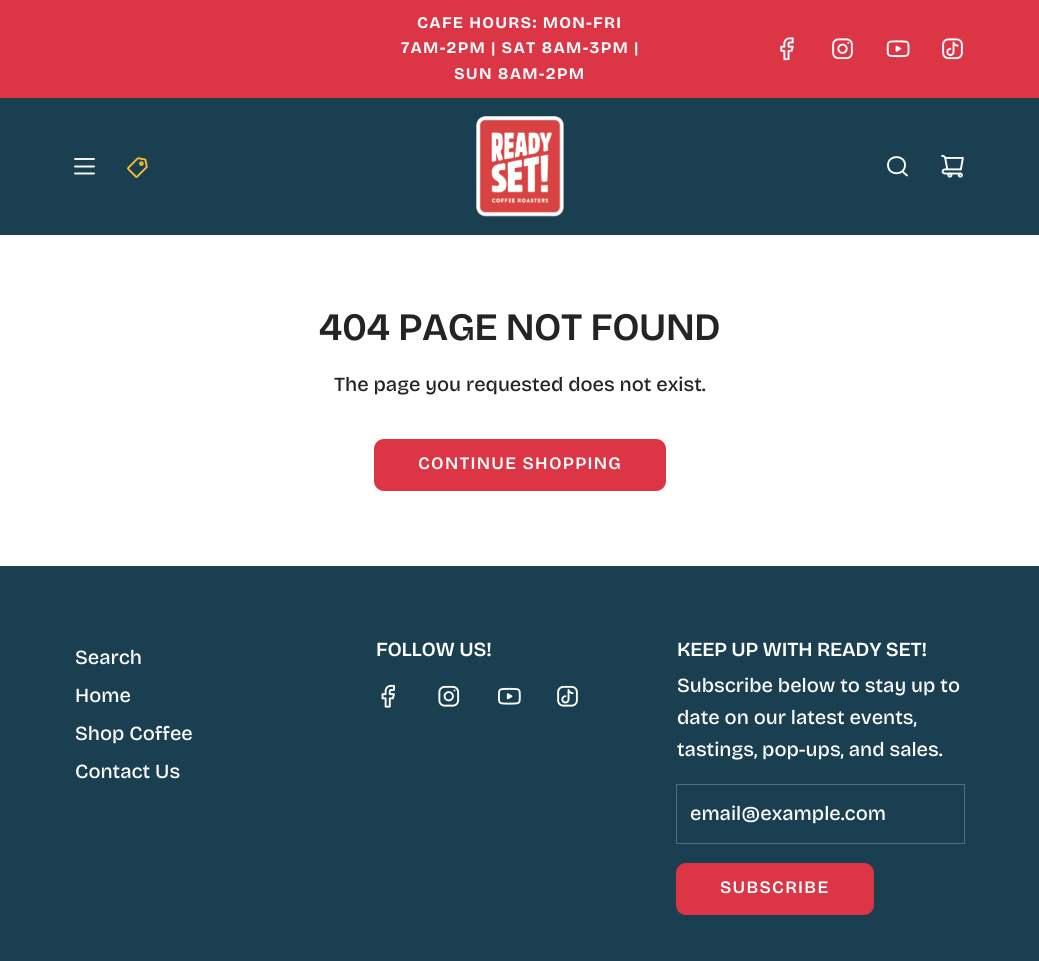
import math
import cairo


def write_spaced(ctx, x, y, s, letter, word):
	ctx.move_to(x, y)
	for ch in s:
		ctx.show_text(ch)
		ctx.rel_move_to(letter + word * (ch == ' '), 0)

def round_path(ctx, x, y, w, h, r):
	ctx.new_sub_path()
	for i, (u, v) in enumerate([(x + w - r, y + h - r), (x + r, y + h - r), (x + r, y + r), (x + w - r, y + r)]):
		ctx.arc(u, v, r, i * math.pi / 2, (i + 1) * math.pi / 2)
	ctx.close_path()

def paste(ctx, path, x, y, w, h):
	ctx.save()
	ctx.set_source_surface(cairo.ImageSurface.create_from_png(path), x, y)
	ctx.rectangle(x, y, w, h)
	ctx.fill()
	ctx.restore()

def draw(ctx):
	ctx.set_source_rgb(1, 1, 1)
	ctx.paint()
	ctx.set_source_rgb(0.863, 0.208, 0.271)
	ctx.rectangle(0, 0, 1039, 98)
	ctx.fill()
	ctx.select_font_face('Bricolage Grotesque', cairo.FONT_SLANT_NORMAL, cairo.FONT_WEIGHT_BOLD)
	ctx.set_font_size(16.25)
	ctx.set_source_rgb(1, 1, 1)
	for x, y, s in [
		(417, 28, 'CAFE HOURS: MON-FRI'),
		(401, 53, '7AM-2PM | SAT 8AM-3PM |'),
		(454, 79, 'SUN 8AM-2PM'),
	]:
		write_spaced(ctx, x, y, s, 1.25, 0)
	paste(ctx, 'media/1.png', 780, 37, 14, 24)
	paste(ctx, 'media/2.png', 832, 38, 21, 22)
	paste(ctx, 'media/3.png', 886, 40, 24, 18)
	paste(ctx, 'media/4.png', 942, 38, 21, 22)
	ctx.set_source_rgb(0.098, 0.247, 0.318)
	ctx.rectangle(0, 98, 1039, 137)
	ctx.fill()
	ctx.new_path()
	ctx.move_to(75, 159)
	ctx.line_to(94, 159)
	ctx.move_to(75, 166.5)
	ctx.line_to(94, 166.5)
	ctx.move_to(75, 173.5)
	ctx.line_to(94, 173.5)
	ctx.set_source_rgb(1, 1, 1)
	ctx.set_line_width(1.9)
	ctx.set_line_cap(cairo.LINE_CAP_ROUND)
	ctx.set_line_join(cairo.LINE_JOIN_ROUND)
	ctx.stroke()
	paste(ctx, 'media/5.png', 127, 157, 21, 21)
	paste(ctx, 'media/6.png', 476, 116, 88, 101)
	ctx.new_path()
	ctx.move_to(902.5, 171.5)
	ctx.line_to(907, 175.5)
	ctx.move_to(888, 165)
	ctx.curve_to(888, 176, 905, 176, 905, 165)
	ctx.curve_to(905, 154.5, 888, 154.5, 888, 165)
	ctx.close_path()
	ctx.stroke()
	paste(ctx, 'media/7.png', 941, 154, 23, 24)
	ctx.select_font_face('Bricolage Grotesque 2 SemiBold')
	ctx.set_font_size(38.75)
	ctx.set_source_rgb(0.141, 0.141, 0.141)
	write_spaced(ctx, 319, 340, '404 PAGE NOT FOUND', -0.4, 0)
	ctx.select_font_face('Bricolage Grotesque Medium')
	ctx.set_font_size(20)
	ctx.move_to(334, 391)
	ctx.show_text('The page you requested does not exist.')
	ctx.set_source_rgb(0.863, 0.208, 0.271)
	round_path(ctx, 374, 439, 292, 52, 10)
	ctx.fill()
	ctx.select_font_face('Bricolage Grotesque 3 SemiBold')
	ctx.set_font_size(17.5)
	ctx.set_source_rgb(1, 1, 1)
	write_spaced(ctx, 418, 469, 'CONTINUE SHOPPING', 1.25, 0)
	ctx.set_source_rgb(0.098, 0.247, 0.318)
	ctx.rectangle(0, 566, 1039, 395)
	ctx.fill()
	ctx.select_font_face('Bricolage Grotesque Medium')
	ctx.set_font_size(20)
	ctx.set_source_rgb(1, 1, 1)
	for x, y, s in [
		(75, 664, 'Search'),
		(75, 702, 'Home'),
		(75, 740, 'Shop Coffee'),
		(75, 778, 'Contact Us'),
	]:
		ctx.move_to(x, y)
		ctx.show_text(s)
	ctx.select_font_face('Bricolage Grotesque SemiBold')
	write_spaced(ctx, 376, 656, 'FOLLOW US!', -0.2, 0)
	paste(ctx, 'media/8.png', 381, 684, 14, 24)
	paste(ctx, 'media/9.png', 438, 685, 22, 22)
	paste(ctx, 'media/10.png', 498, 687, 23, 18)
	paste(ctx, 'media/11.png', 557, 685, 21, 22)
	write_spaced(ctx, 677, 656, 'KEEP UP WITH READY SET!', -0.2, 0)
	ctx.select_font_face('Bricolage Grotesque Medium')
	for x, y, s in [
		(677, 692, 'Subscribe below to stay up to'),
		(677, 724, 'date on our latest events,'),
		(677, 756, 'tastings, pop-ups, and sales.'),
	]:
		ctx.move_to(x, y)
		ctx.show_text(s)
	ctx.rectangle(676.5, 784.5, 288, 59)
	ctx.set_source_rgb(0.325, 0.435, 0.49)
	ctx.set_line_width(1)
	ctx.set_line_cap(cairo.LINE_CAP_BUTT)
	ctx.set_line_join(cairo.LINE_JOIN_MITER)
	ctx.stroke()
	ctx.set_source_rgb(1, 1, 1)
	ctx.move_to(690, 820)
	ctx.show_text('email@example.com')
	ctx.set_source_rgb(0.863, 0.208, 0.271)
	round_path(ctx, 676, 863, 198, 52, 10)
	ctx.fill()
	ctx.select_font_face('Bricolage Grotesque 3 SemiBold')
	ctx.set_font_size(17.5)
	ctx.set_source_rgb(1, 1, 1)
	write_spaced(ctx, 720, 893, 'SUBSCRIBE', 1.25, 0)


surface = cairo.ImageSurface(cairo.FORMAT_RGB24, 1039, 961)
ctx = cairo.Context(surface)
options = cairo.FontOptions()
options.set_hint_metrics(cairo.HINT_METRICS_OFF)
options.set_hint_style(cairo.HINT_STYLE_NONE)
ctx.set_font_options(options)
ctx.set_miter_limit(4)
draw(ctx)
surface.write_to_png('image.png')
